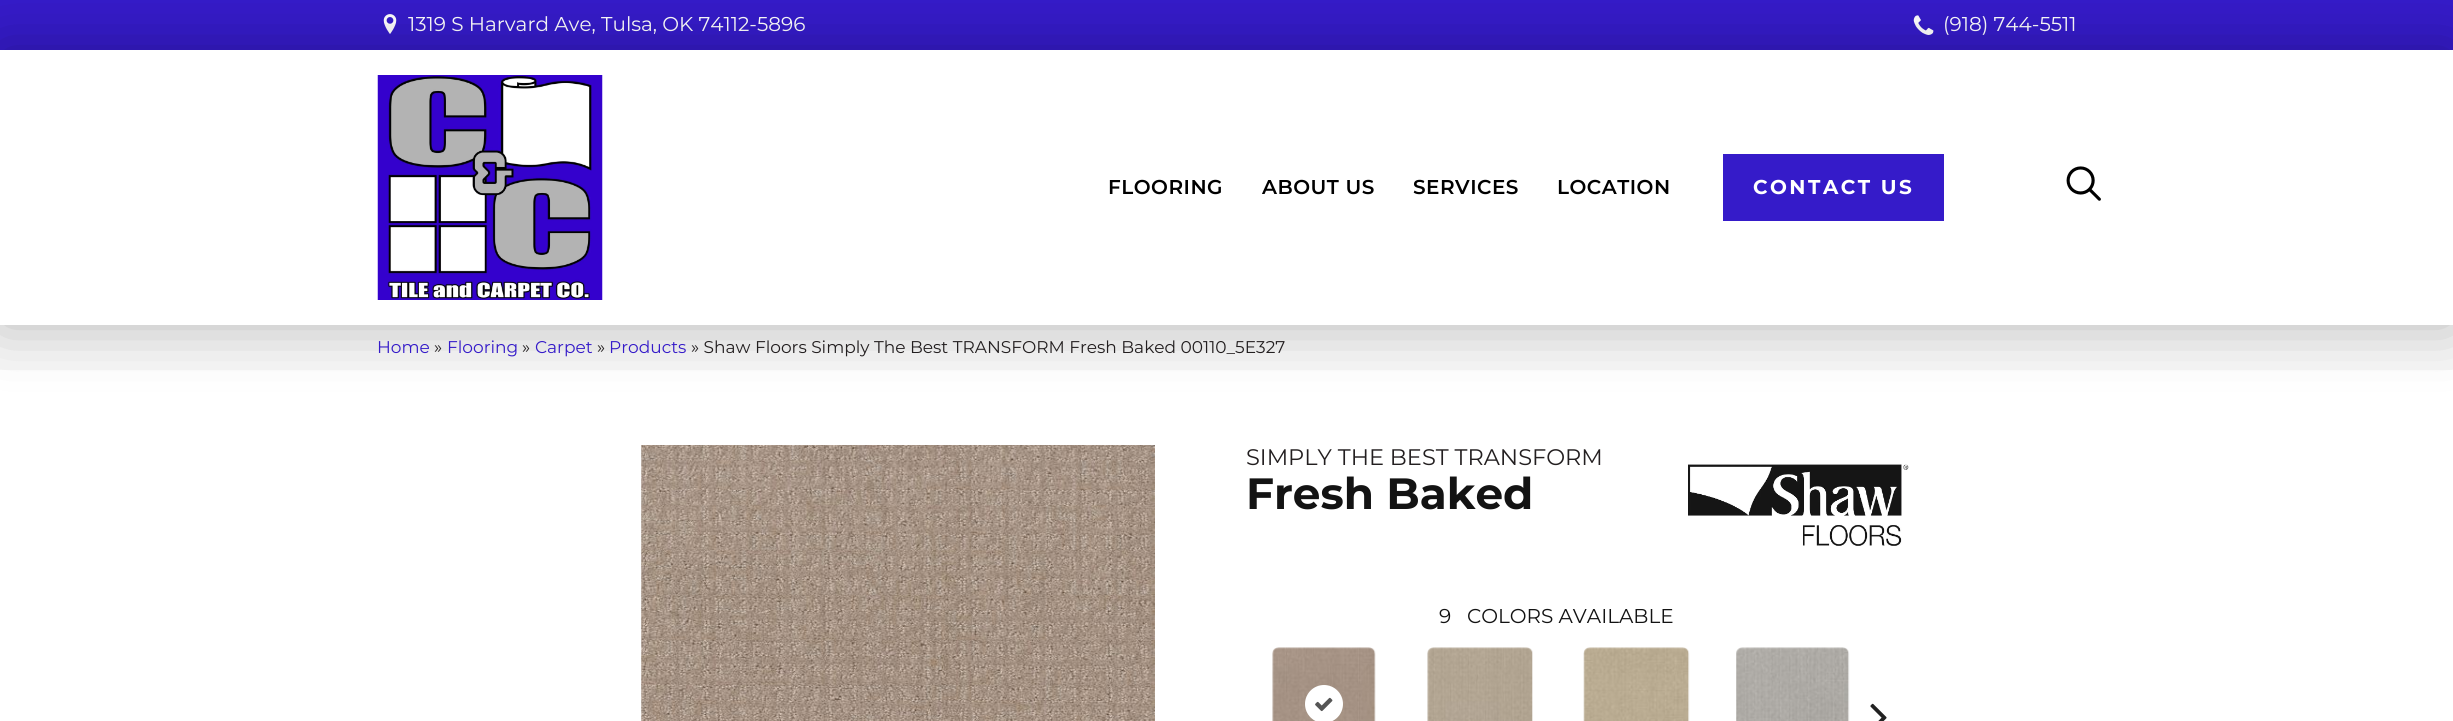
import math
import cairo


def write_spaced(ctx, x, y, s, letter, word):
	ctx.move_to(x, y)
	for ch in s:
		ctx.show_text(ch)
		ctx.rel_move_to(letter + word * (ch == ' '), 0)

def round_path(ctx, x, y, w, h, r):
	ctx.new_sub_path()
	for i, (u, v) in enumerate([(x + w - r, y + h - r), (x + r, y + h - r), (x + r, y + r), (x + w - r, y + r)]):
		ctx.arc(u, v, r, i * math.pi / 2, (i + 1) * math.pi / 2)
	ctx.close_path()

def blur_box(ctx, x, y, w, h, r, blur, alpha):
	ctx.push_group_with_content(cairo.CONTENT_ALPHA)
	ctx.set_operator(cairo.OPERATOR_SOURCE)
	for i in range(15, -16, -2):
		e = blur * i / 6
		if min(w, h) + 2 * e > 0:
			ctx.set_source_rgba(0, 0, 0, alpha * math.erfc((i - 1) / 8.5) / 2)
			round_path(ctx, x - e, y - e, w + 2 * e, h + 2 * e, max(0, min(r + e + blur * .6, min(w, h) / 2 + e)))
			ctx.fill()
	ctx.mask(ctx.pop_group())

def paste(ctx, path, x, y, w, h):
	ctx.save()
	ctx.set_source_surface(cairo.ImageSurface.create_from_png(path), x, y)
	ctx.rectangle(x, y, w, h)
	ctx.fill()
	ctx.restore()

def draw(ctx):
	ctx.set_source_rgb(1, 1, 1)
	ctx.paint()
	ctx.set_source_rgb(0.208, 0.106, 0.788)
	ctx.rectangle(0, 0, 2453, 50)
	ctx.fill()
	paste(ctx, 'media/1.png', 383, 14, 14, 20)
	ctx.select_font_face('Montserrat')
	ctx.set_font_size(20)
	ctx.set_source_rgb(1, 1, 1)
	ctx.move_to(408, 31)
	ctx.show_text('1319 S Harvard Ave, Tulsa, OK 74112-5896')
	paste(ctx, 'media/2.png', 1913, 15, 21, 20)
	ctx.move_to(1943, 31)
	ctx.show_text('(918) 744-5511')
	ctx.set_source_rgb(0.969, 0.969, 0.969)
	ctx.rectangle(0, 325, 2453, 45)
	ctx.fill()
	ctx.save()
	ctx.set_fill_rule(cairo.FILL_RULE_EVEN_ODD)
	ctx.new_path()
	ctx.move_to(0, 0)
	ctx.line_to(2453, 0)
	ctx.line_to(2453, 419)
	ctx.line_to(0, 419)
	ctx.close_path()
	ctx.move_to(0, 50)
	ctx.line_to(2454, 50)
	ctx.line_to(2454, 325)
	ctx.line_to(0, 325)
	ctx.close_path()
	ctx.clip()
	ctx.set_source_rgb(0, 0, 0)
	blur_box(ctx, 0, 50, 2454, 275, 0, 31, 0.27)
	ctx.restore()
	paste(ctx, 'media/3.png', 377, 75, 226, 225)
	ctx.select_font_face('Montserrat SemiBold')
	ctx.set_source_rgb(0, 0, 0)
	for x, y, s in [
		(1108, 194, 'FLOORING'),
		(1262, 194, 'ABOUT US'),
		(1413, 194, 'SERVICES'),
		(1557, 194, 'LOCATION'),
	]:
		write_spaced(ctx, x, y, s, 0.5, 0)
	ctx.set_source_rgb(0.208, 0.106, 0.788)
	ctx.rectangle(1723, 154, 221, 67)
	ctx.fill()
	ctx.select_font_face('Montserrat', cairo.FONT_SLANT_NORMAL, cairo.FONT_WEIGHT_BOLD)
	ctx.set_source_rgb(1, 1, 1)
	write_spaced(ctx, 1753, 194, 'CONTACT US', 2.5, 0)
	paste(ctx, 'media/4.png', 2066, 166, 35, 35)
	ctx.select_font_face('Montserrat')
	ctx.set_font_size(17)
	ctx.set_source_rgb(0.208, 0.106, 0.788)
	ctx.move_to(377, 353)
	ctx.show_text('Home')
	ctx.set_source_rgb(0.137, 0.122, 0.125)
	ctx.move_to(434, 353)
	ctx.show_text('»')
	ctx.set_source_rgb(0.208, 0.106, 0.788)
	ctx.move_to(447, 353)
	ctx.show_text('Flooring')
	ctx.set_source_rgb(0.137, 0.122, 0.125)
	ctx.move_to(522, 353)
	ctx.show_text('»')
	ctx.set_source_rgb(0.208, 0.106, 0.788)
	ctx.move_to(535, 353)
	ctx.show_text('Carpet')
	ctx.set_source_rgb(0.137, 0.122, 0.125)
	ctx.move_to(597, 353)
	ctx.show_text('»')
	ctx.set_source_rgb(0.208, 0.106, 0.788)
	ctx.move_to(609, 353)
	ctx.show_text('Products')
	ctx.set_source_rgb(0.137, 0.122, 0.125)
	ctx.move_to(691, 353)
	ctx.show_text('» Shaw Floors Simply The Best TRANSFORM Fresh Baked 00110_5E327')
	paste(ctx, 'media/5.png', 641, 445, 514, 276)
	ctx.set_font_size(22.5)
	ctx.move_to(1246, 465)
	ctx.show_text('SIMPLY THE BEST TRANSFORM')
	ctx.select_font_face('Montserrat', cairo.FONT_SLANT_NORMAL, cairo.FONT_WEIGHT_BOLD)
	ctx.set_font_size(43.75)
	ctx.set_source_rgb(0.078, 0.078, 0.078)
	ctx.move_to(1246, 509)
	ctx.show_text('Fresh Baked')
	paste(ctx, 'media/6.png', 1688, 464, 221, 82)
	ctx.select_font_face('Montserrat')
	ctx.set_font_size(20)
	ctx.move_to(1439, 623)
	ctx.show_text('9')
	ctx.move_to(1467, 623)
	ctx.show_text('COLORS AVAILABLE')
	paste(ctx, 'media/7.png', 1272, 647, 104, 74)
	ctx.set_source_rgb(1, 1, 1)
	ctx.arc(1324, 704, 19, 0, 2 * math.pi)
	ctx.fill()
	paste(ctx, 'media/8.png', 1315, 697, 18, 15)
	paste(ctx, 'media/9.png', 1427, 647, 106, 74)
	paste(ctx, 'media/10.png', 1583, 647, 107, 74)
	paste(ctx, 'media/11.png', 1736, 647, 114, 74)
	paste(ctx, 'media/12.png', 1870, 703, 17, 18)


surface = cairo.ImageSurface(cairo.FORMAT_RGB24, 2453, 721)
ctx = cairo.Context(surface)
options = cairo.FontOptions()
options.set_hint_metrics(cairo.HINT_METRICS_OFF)
options.set_hint_style(cairo.HINT_STYLE_NONE)
ctx.set_font_options(options)
ctx.set_miter_limit(4)
draw(ctx)
surface.write_to_png('image.png')
